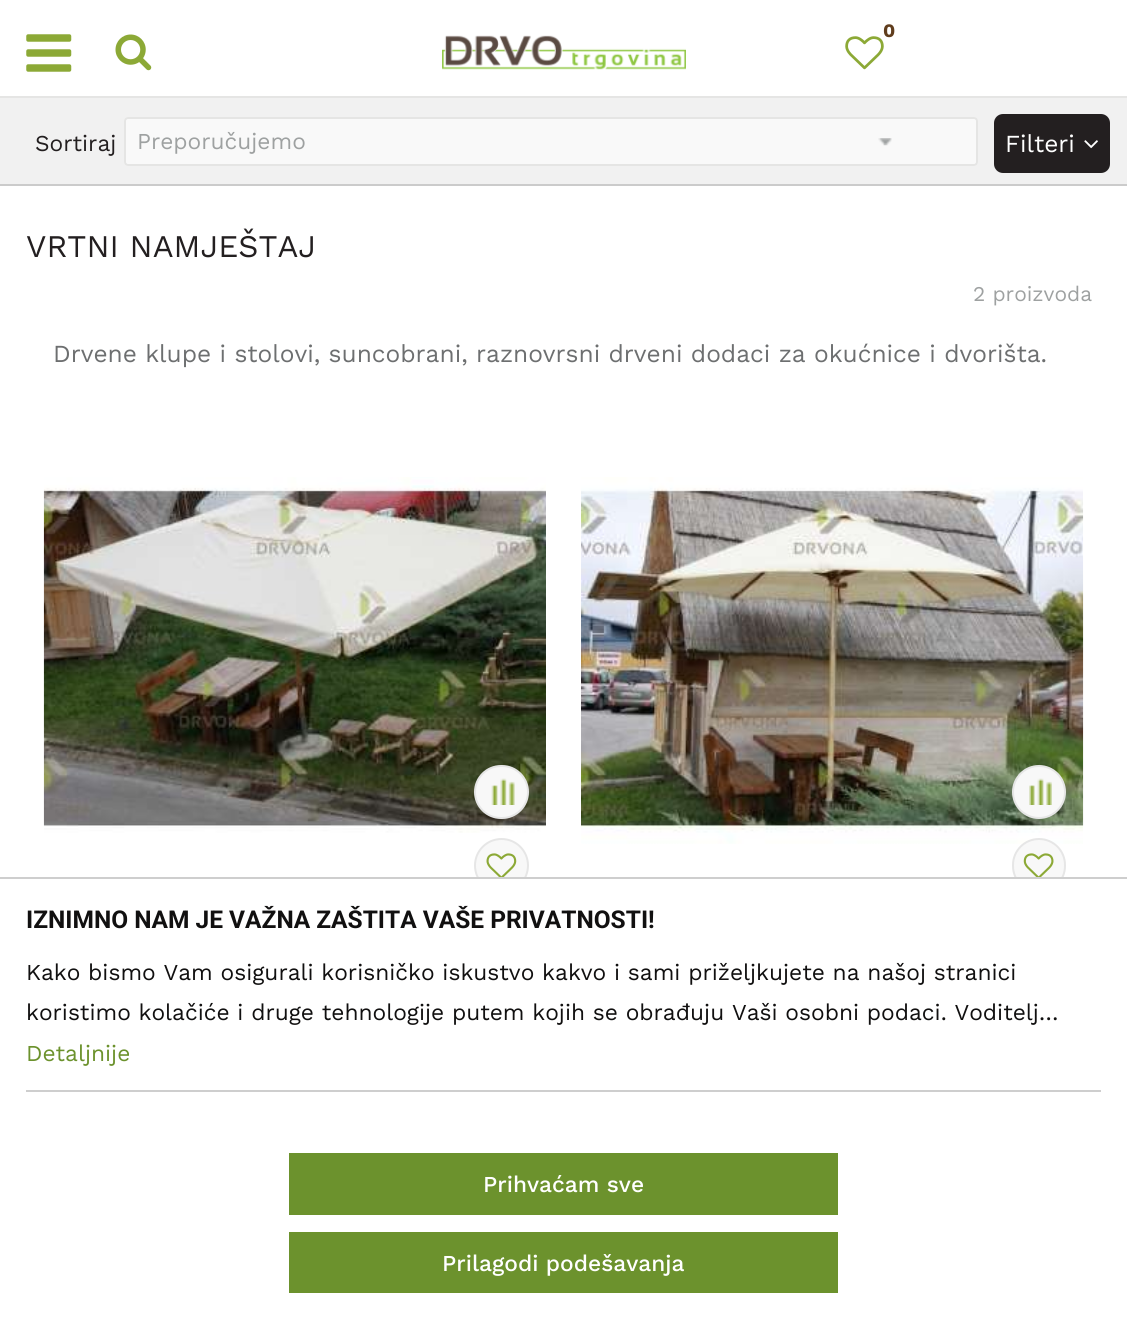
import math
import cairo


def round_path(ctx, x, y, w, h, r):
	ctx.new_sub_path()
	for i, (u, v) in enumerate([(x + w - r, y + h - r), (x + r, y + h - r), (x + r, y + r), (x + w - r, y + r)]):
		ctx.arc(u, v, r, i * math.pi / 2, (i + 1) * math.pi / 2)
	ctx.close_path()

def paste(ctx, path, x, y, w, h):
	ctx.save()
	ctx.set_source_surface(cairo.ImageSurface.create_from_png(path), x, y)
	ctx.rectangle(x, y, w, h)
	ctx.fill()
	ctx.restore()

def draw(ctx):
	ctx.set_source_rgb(1, 1, 1)
	ctx.paint()
	ctx.set_source_rgb(0.898, 0.898, 0.894)
	ctx.rectangle(0, 96, 1127, 2)
	ctx.fill()
	paste(ctx, 'media/1.png', 845, 36, 39, 34)
	ctx.select_font_face('Work Sans', cairo.FONT_SLANT_NORMAL, cairo.FONT_WEIGHT_BOLD)
	ctx.set_font_size(19)
	ctx.set_source_rgb(0.376, 0.239, 0.114)
	ctx.move_to(883, 37)
	ctx.show_text('0')
	paste(ctx, 'media/2.png', 442, 35, 244, 35)
	paste(ctx, 'media/3.png', 26, 34, 46, 38)
	paste(ctx, 'media/4.png', 115, 34, 37, 37)
	ctx.set_source_rgb(0.945, 0.945, 0.945)
	ctx.rectangle(0, 98, 1127, 86)
	ctx.fill()
	ctx.set_source_rgb(0.796, 0.796, 0.796)
	ctx.rectangle(0, 184, 1127, 2)
	ctx.fill()
	ctx.select_font_face('Work Sans')
	ctx.set_font_size(22.75)
	ctx.set_source_rgb(0.137, 0.122, 0.125)
	ctx.move_to(35, 151)
	ctx.show_text('Sortiraj')
	ctx.set_source_rgb(0.976, 0.976, 0.976)
	round_path(ctx, 124, 117, 854, 49, 4)
	ctx.fill()
	paste(ctx, 'media/5.png', 878, 138, 14, 8)
	round_path(ctx, 125, 118, 852, 47, 3)
	ctx.set_source_rgb(0.898, 0.898, 0.894)
	ctx.stroke()
	ctx.set_source_rgb(0.62, 0.631, 0.631)
	ctx.move_to(137, 149)
	ctx.show_text('Preporučujemo')
	ctx.set_source_rgb(0.137, 0.122, 0.125)
	round_path(ctx, 994, 114, 116, 59, 9)
	ctx.fill()
	ctx.set_font_size(24.5)
	ctx.set_source_rgb(1, 1, 1)
	ctx.move_to(1005, 152)
	ctx.show_text('Filteri')
	paste(ctx, 'media/6.png', 1084, 140, 14, 9)
	ctx.set_font_size(31.5)
	ctx.set_source_rgb(0.137, 0.122, 0.125)
	ctx.move_to(26, 257)
	ctx.show_text('VRTNI NAMJEŠTAJ')
	ctx.set_font_size(21)
	ctx.set_source_rgb(0.62, 0.631, 0.631)
	ctx.move_to(973, 301)
	ctx.show_text('2 proizvoda')
	ctx.set_font_size(24.5)
	ctx.set_source_rgb(0.427, 0.435, 0.439)
	ctx.move_to(53, 362)
	ctx.show_text('Drvene klupe i stolovi, suncobrani, raznovrsni drveni dodaci za okućnice i dvorišta.')
	paste(ctx, 'media/7.png', 43, 477, 503, 356)
	ctx.set_source_rgb(0.969, 0.969, 0.969)
	round_path(ctx, 475, 766, 53, 52, 26)
	ctx.fill_preserve()
	ctx.set_source_rgb(0.902, 0.902, 0.902)
	ctx.stroke()
	paste(ctx, 'media/8.png', 491, 778, 24, 27)
	ctx.set_source_rgb(0.969, 0.969, 0.969)
	ctx.arc(501.5, 865.5, 26.5, 0, 2 * math.pi)
	ctx.fill_preserve()
	ctx.set_source_rgb(0.902, 0.902, 0.902)
	ctx.stroke()
	paste(ctx, 'media/9.png', 486, 853, 31, 24)
	paste(ctx, 'media/10.png', 581, 477, 503, 367)
	ctx.set_source_rgb(0.969, 0.969, 0.969)
	ctx.arc(1039, 792, 26, 0, 2 * math.pi)
	ctx.fill_preserve()
	ctx.set_source_rgb(0.902, 0.902, 0.902)
	ctx.stroke()
	paste(ctx, 'media/11.png', 1029, 778, 23, 27)
	ctx.set_source_rgb(0.969, 0.969, 0.969)
	round_path(ctx, 1013, 839, 52, 53, 26)
	ctx.fill_preserve()
	ctx.set_source_rgb(0.902, 0.902, 0.902)
	ctx.stroke()
	paste(ctx, 'media/12.png', 1023, 853, 31, 24)
	ctx.set_source_rgb(1, 1, 1)
	ctx.rectangle(477, 879, 586, 14)
	ctx.fill()
	ctx.set_source_rgb(0.808, 0.808, 0.808)
	ctx.rectangle(0, 877, 1127, 2)
	ctx.fill()
	ctx.select_font_face('Roboto', cairo.FONT_SLANT_NORMAL, cairo.FONT_WEIGHT_BOLD)
	ctx.set_source_rgb(0.067, 0.063, 0.063)
	ctx.move_to(26, 928)
	ctx.show_text('IZNIMNO NAM JE VAŽNA ZAŠTITA VAŠE PRIVATNOSTI!')
	ctx.select_font_face('Work Sans')
	ctx.set_font_size(22.75)
	ctx.move_to(26, 980)
	ctx.show_text('Kako bismo Vam osigurali korisničko iskustvo kakvo i sami priželjkujete na našoj stranici')
	ctx.move_to(26, 1020)
	ctx.show_text('koristimo kolačiće i druge tehnologije putem kojih se obrađuju Vaši osobni podaci. Voditelj…')
	ctx.set_source_rgb(0.424, 0.573, 0.176)
	ctx.move_to(26, 1061)
	ctx.show_text('Detaljnije')
	ctx.set_source_rgb(0.808, 0.808, 0.808)
	ctx.rectangle(26, 1090, 1075, 2)
	ctx.fill()
	ctx.set_source_rgb(0.424, 0.573, 0.176)
	ctx.rectangle(289, 1153, 549, 62)
	ctx.fill()
	ctx.select_font_face('Work Sans Medium')
	ctx.set_source_rgb(1, 1, 1)
	ctx.move_to(483, 1192)
	ctx.show_text('Prihvaćam sve')
	ctx.set_source_rgb(0.424, 0.573, 0.176)
	ctx.rectangle(289, 1232, 549, 61)
	ctx.fill()
	ctx.set_source_rgb(1, 1, 1)
	ctx.move_to(442, 1271)
	ctx.show_text('Prilagodi podešavanja')


surface = cairo.ImageSurface(cairo.FORMAT_RGB24, 1127, 1323)
ctx = cairo.Context(surface)
options = cairo.FontOptions()
options.set_hint_metrics(cairo.HINT_METRICS_OFF)
options.set_hint_style(cairo.HINT_STYLE_NONE)
ctx.set_font_options(options)
ctx.set_miter_limit(4)
draw(ctx)
surface.write_to_png('image.png')
